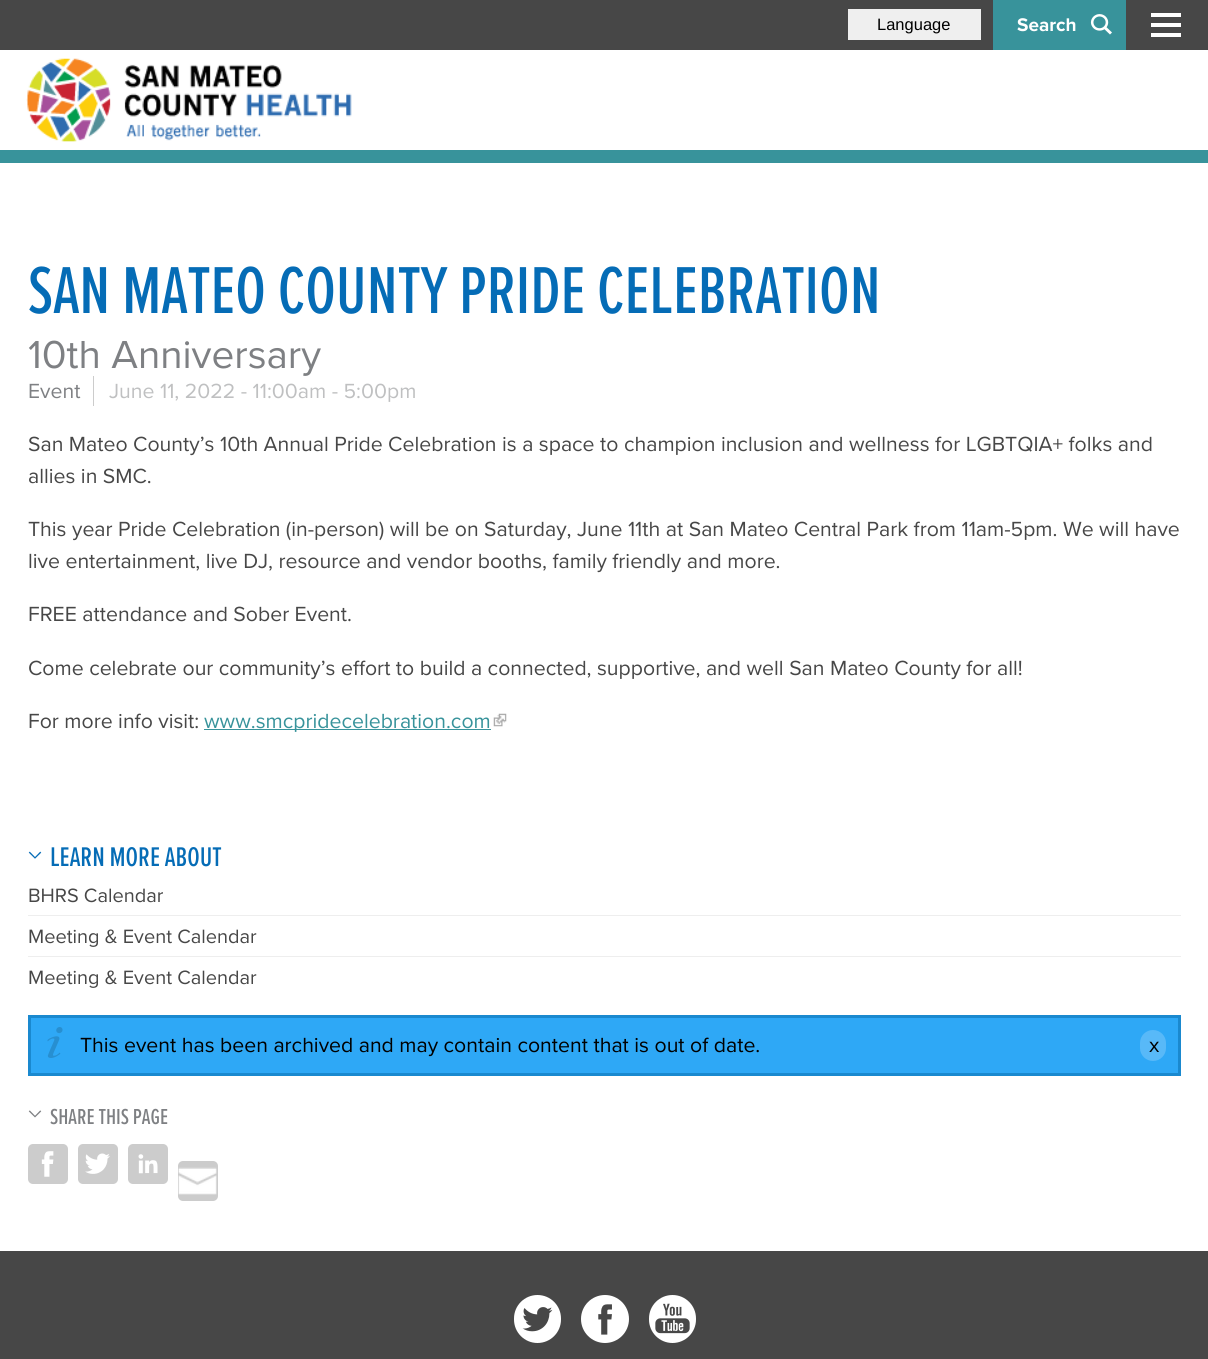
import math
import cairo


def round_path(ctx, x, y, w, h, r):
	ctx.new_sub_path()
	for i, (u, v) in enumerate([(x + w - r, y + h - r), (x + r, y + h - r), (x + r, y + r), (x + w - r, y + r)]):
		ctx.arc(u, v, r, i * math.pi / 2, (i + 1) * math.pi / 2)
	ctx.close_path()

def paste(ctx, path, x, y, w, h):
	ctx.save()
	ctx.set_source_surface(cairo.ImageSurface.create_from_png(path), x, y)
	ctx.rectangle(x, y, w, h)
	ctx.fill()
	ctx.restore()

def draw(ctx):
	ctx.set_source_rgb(1, 1, 1)
	ctx.paint()
	ctx.set_source_rgb(0.278, 0.278, 0.278)
	ctx.rectangle(0, 0, 1208, 50)
	ctx.fill()
	ctx.set_source_rgb(0.22, 0.576, 0.608)
	ctx.rectangle(0, 150, 1208, 13)
	ctx.fill()
	ctx.set_source_rgb(0.937, 0.937, 0.937)
	ctx.rectangle(848, 9, 133, 31)
	ctx.fill()
	ctx.select_font_face('Liberation Sans')
	ctx.set_font_size(16.5)
	ctx.set_source_rgb(0, 0, 0)
	ctx.move_to(877, 30)
	ctx.show_text('Language')
	ctx.set_source_rgb(0.22, 0.576, 0.608)
	ctx.rectangle(993, 0, 133, 50)
	ctx.fill()
	ctx.select_font_face('Proxima Nova', cairo.FONT_SLANT_NORMAL, cairo.FONT_WEIGHT_BOLD)
	ctx.set_font_size(19)
	ctx.set_source_rgb(1, 1, 1)
	ctx.move_to(1017, 31)
	ctx.show_text('Search')
	paste(ctx, 'media/1.png', 1090, 14, 22, 21)
	ctx.rectangle(1151, 13, 30, 4)
	ctx.rectangle(1151, 23, 30, 4)
	ctx.rectangle(1151, 33, 30, 4)
	ctx.fill()
	paste(ctx, 'media/2.png', 26, 58, 326, 84)
	ctx.select_font_face('Proxima Nova Medium')
	ctx.set_font_size(68.75)
	ctx.set_source_rgb(0.02, 0.424, 0.714)
	ctx.move_to(28, 313)
	ctx.show_text('SAN MATEO COUNTY PRIDE CELEBRATION')
	ctx.select_font_face('Proxima Nova')
	ctx.set_font_size(40.5)
	ctx.set_source_rgb(0.494, 0.502, 0.514)
	ctx.move_to(28, 368)
	ctx.show_text('10th Anniversary')
	ctx.set_font_size(21.25)
	ctx.move_to(28, 398)
	ctx.show_text('Event')
	ctx.set_source_rgb(0.8, 0.8, 0.8)
	ctx.rectangle(93, 376, 1, 30)
	ctx.fill()
	ctx.set_source_rgb(0.749, 0.753, 0.757)
	ctx.move_to(109, 398)
	ctx.show_text('June 11, 2022 - 11:00am - 5:00pm')
	ctx.set_source_rgb(0.278, 0.278, 0.278)
	for x, y, s in [
		(28, 451, 'San Mateo County’s 10th Annual Pride Celebration is a space to champion inclusion and wellness for LGBTQIA+ folks and'),
		(28, 483, 'allies in SMC.'),
		(28, 536, 'This year Pride Celebration (in-person) will be on Saturday, June 11th at San Mateo Central Park from 11am-5pm. We will have'),
		(28, 568, 'live entertainment, live DJ, resource and vendor booths, family friendly and more.'),
		(28, 621, 'FREE attendance and Sober Event.'),
		(28, 675, 'Come celebrate our community’s effort to build a connected, supportive, and well San Mateo County for all!'),
		(28, 728, 'For more info visit:'),
	]:
		ctx.move_to(x, y)
		ctx.show_text(s)
	ctx.set_source_rgb(0.22, 0.576, 0.608)
	ctx.rectangle(204, 729, 287, 1)
	ctx.fill()
	ctx.move_to(204, 728)
	ctx.show_text('www.smcpridecelebration.com')
	paste(ctx, 'media/3.png', 493, 713, 14, 14)
	paste(ctx, 'media/4.png', 28, 851, 14, 8)
	ctx.select_font_face('Proxima Nova Medium')
	ctx.set_font_size(28)
	ctx.set_source_rgb(0.02, 0.424, 0.714)
	ctx.move_to(50, 866)
	ctx.show_text('LEARN MORE ABOUT')
	ctx.select_font_face('Proxima Nova')
	ctx.set_font_size(20)
	ctx.set_source_rgb(0.278, 0.278, 0.278)
	ctx.move_to(28, 902)
	ctx.show_text('BHRS Calendar')
	ctx.set_source_rgb(0.933, 0.933, 0.933)
	ctx.rectangle(28, 915, 1153, 1)
	ctx.fill()
	ctx.set_source_rgb(0.278, 0.278, 0.278)
	ctx.move_to(28, 943)
	ctx.show_text('Meeting & Event Calendar')
	ctx.set_source_rgb(0.933, 0.933, 0.933)
	ctx.rectangle(28, 956, 1153, 1)
	ctx.fill()
	ctx.set_source_rgb(0.278, 0.278, 0.278)
	ctx.move_to(28, 984)
	ctx.show_text('Meeting & Event Calendar')
	ctx.set_source_rgb(0.18, 0.659, 0.961)
	ctx.rectangle(31, 1018, 1147, 55)
	ctx.fill()
	paste(ctx, 'media/5.png', 47, 1027, 16, 31)
	ctx.rectangle(29.5, 1016.5, 1150, 58)
	ctx.set_source_rgb(0.102, 0.537, 0.812)
	ctx.set_line_width(3)
	ctx.stroke()
	ctx.set_font_size(21.25)
	ctx.set_source_rgb(0, 0, 0)
	ctx.move_to(80, 1052)
	ctx.show_text('This event has been archived and may contain content that is out of date.')
	ctx.set_source_rgb(0.345, 0.725, 0.969)
	round_path(ctx, 1140, 1030, 26, 31, 13)
	ctx.fill()
	ctx.set_source_rgb(0, 0, 0)
	ctx.move_to(1149, 1052)
	ctx.show_text('x')
	paste(ctx, 'media/6.png', 28, 1110, 14, 8)
	ctx.select_font_face('Proxima Nova Medium')
	ctx.set_font_size(22.5)
	ctx.set_source_rgb(0.494, 0.502, 0.514)
	ctx.move_to(50, 1124)
	ctx.show_text('SHARE THIS PAGE')
	ctx.set_source_rgb(0.8, 0.8, 0.8)
	round_path(ctx, 28, 1144, 40, 40, 5)
	ctx.fill()
	paste(ctx, 'media/7.png', 41, 1151, 13, 26)
	round_path(ctx, 78, 1144, 40, 40, 5)
	ctx.fill()
	paste(ctx, 'media/8.png', 85, 1153, 25, 21)
	round_path(ctx, 128, 1144, 40, 40, 5)
	ctx.fill()
	paste(ctx, 'media/9.png', 138, 1154, 20, 20)
	round_path(ctx, 178, 1161, 40, 40, 5)
	ctx.fill()
	paste(ctx, 'media/10.png', 178, 1167, 39, 28)
	ctx.set_source_rgb(0.278, 0.278, 0.278)
	ctx.rectangle(0, 1251, 1208, 108)
	ctx.fill()
	ctx.set_source_rgb(1, 1, 1)
	round_path(ctx, 514, 1295, 47, 48, 23.5)
	ctx.fill()
	paste(ctx, 'media/11.png', 522, 1307, 31, 25)
	ctx.arc(605, 1319, 24, 0, 2 * math.pi)
	ctx.fill()
	paste(ctx, 'media/12.png', 598, 1304, 14, 31)
	round_path(ctx, 649, 1295, 47, 48, 23.5)
	ctx.fill()
	paste(ctx, 'media/13.png', 655, 1303, 35, 31)


surface = cairo.ImageSurface(cairo.FORMAT_RGB24, 1208, 1359)
ctx = cairo.Context(surface)
options = cairo.FontOptions()
options.set_hint_metrics(cairo.HINT_METRICS_OFF)
options.set_hint_style(cairo.HINT_STYLE_NONE)
ctx.set_font_options(options)
ctx.set_miter_limit(4)
draw(ctx)
surface.write_to_png('image.png')
